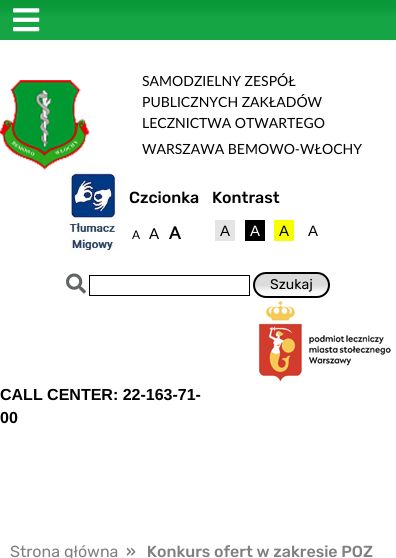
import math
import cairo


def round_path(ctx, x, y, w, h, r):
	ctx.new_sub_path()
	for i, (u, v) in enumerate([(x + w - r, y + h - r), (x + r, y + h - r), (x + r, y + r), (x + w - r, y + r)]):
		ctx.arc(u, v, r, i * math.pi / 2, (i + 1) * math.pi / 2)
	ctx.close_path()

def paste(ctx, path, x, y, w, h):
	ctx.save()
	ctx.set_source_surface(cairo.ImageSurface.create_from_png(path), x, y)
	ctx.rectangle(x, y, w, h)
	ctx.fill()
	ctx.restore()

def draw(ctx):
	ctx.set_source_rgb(1, 1, 1)
	ctx.paint()
	gradient = cairo.LinearGradient(198, 0, 198, 40)
	gradient.add_color_stop_rgba(0.15, 0.039, 0.596, 0.224, 1)
	gradient.add_color_stop_rgba(0.4, 0.082, 0.647, 0.271, 1)
	ctx.set_source(gradient)
	ctx.rectangle(0, 0, 396, 40)
	ctx.fill()
	paste(ctx, 'media/1.png', 13, 8, 27, 24)
	paste(ctx, 'media/3.png', 65, 169, 53, 83)
	paste(ctx, 'media/2.png', 0, 80, 90, 90)
	ctx.select_font_face('Lato')
	ctx.set_font_size(14)
	ctx.set_source_rgb(0, 0, 0)
	for x, y, s in [
		(142, 86, 'SAMODZIELNY ZESPÓŁ'),
		(142, 107, 'PUBLICZNYCH ZAKŁADÓW'),
		(142, 128, 'LECZNICTWA OTWARTEGO'),
		(142, 154, 'WARSZAWA BEMOWO-WŁOCHY'),
	]:
		ctx.move_to(x, y)
		ctx.show_text(s)
	ctx.select_font_face('Rubik Medium')
	ctx.set_font_size(16)
	ctx.move_to(129, 203)
	ctx.show_text('Czcionka')
	ctx.select_font_face('Lato')
	ctx.set_font_size(12)
	ctx.move_to(132, 239)
	ctx.show_text('A')
	ctx.set_font_size(15)
	ctx.move_to(149, 239)
	ctx.show_text('A')
	ctx.select_font_face('Lato', cairo.FONT_SLANT_NORMAL, cairo.FONT_WEIGHT_BOLD)
	ctx.set_font_size(17)
	ctx.move_to(169, 239)
	ctx.show_text('A')
	ctx.select_font_face('Rubik Medium')
	ctx.set_font_size(16)
	ctx.move_to(212, 203)
	ctx.show_text('Kontrast')
	ctx.set_source_rgb(0.894, 0.894, 0.894)
	ctx.rectangle(215, 220, 20, 21)
	ctx.fill()
	ctx.select_font_face('Liberation Sans')
	ctx.set_font_size(15)
	ctx.set_source_rgb(0, 0, 0)
	ctx.move_to(220, 236)
	ctx.show_text('A')
	ctx.rectangle(245, 220, 20, 21)
	ctx.fill()
	ctx.set_source_rgb(1, 1, 1)
	ctx.move_to(250, 236)
	ctx.show_text('A')
	ctx.set_source_rgb(0.965, 1, 0)
	ctx.rectangle(274, 220, 20, 21)
	ctx.fill()
	ctx.set_source_rgb(0, 0, 0)
	ctx.move_to(279, 236)
	ctx.show_text('A')
	ctx.move_to(308, 236)
	ctx.show_text('A')
	paste(ctx, 'media/4.png', 66, 273, 20, 21)
	ctx.rectangle(89.5, 275.5, 160, 20)
	ctx.set_line_width(1)
	ctx.stroke()
	ctx.save()
	round_path(ctx, 253, 272, 77, 26, 13)
	ctx.clip()
	gradient = cairo.LinearGradient(292, 274, 292, 296)
	gradient.add_color_stop_rgba(0.5, 0.859, 0.859, 0.859, 1)
	gradient.add_color_stop_rgba(0.8, 0.973, 0.973, 0.973, 1)
	ctx.set_source(gradient)
	ctx.rectangle(253, 274, 77, 22)
	ctx.fill()
	ctx.restore()
	round_path(ctx, 254, 273, 75, 24, 12)
	ctx.set_line_width(2)
	ctx.stroke()
	ctx.select_font_face('Rubik')
	ctx.set_font_size(14)
	ctx.move_to(270, 289)
	ctx.show_text('Szukaj')
	paste(ctx, 'media/5.png', 259, 301, 132, 81)
	ctx.select_font_face('Liberation Sans', cairo.FONT_SLANT_NORMAL, cairo.FONT_WEIGHT_BOLD)
	ctx.set_font_size(16)
	ctx.move_to(0, 400)
	ctx.show_text('CALL CENTER: 22-163-71-')
	ctx.move_to(0, 423)
	ctx.show_text('00')
	ctx.select_font_face('Rubik')
	ctx.set_source_rgb(0.502, 0.502, 0.502)
	ctx.move_to(10, 557)
	ctx.show_text('Strona główna')
	ctx.select_font_face('Rubik Medium')
	ctx.move_to(126, 557)
	ctx.show_text('»   Konkurs ofert w zakresie POZ')


surface = cairo.ImageSurface(cairo.FORMAT_RGB24, 396, 558)
ctx = cairo.Context(surface)
options = cairo.FontOptions()
options.set_hint_metrics(cairo.HINT_METRICS_OFF)
options.set_hint_style(cairo.HINT_STYLE_NONE)
ctx.set_font_options(options)
ctx.set_miter_limit(4)
draw(ctx)
surface.write_to_png('image.png')
